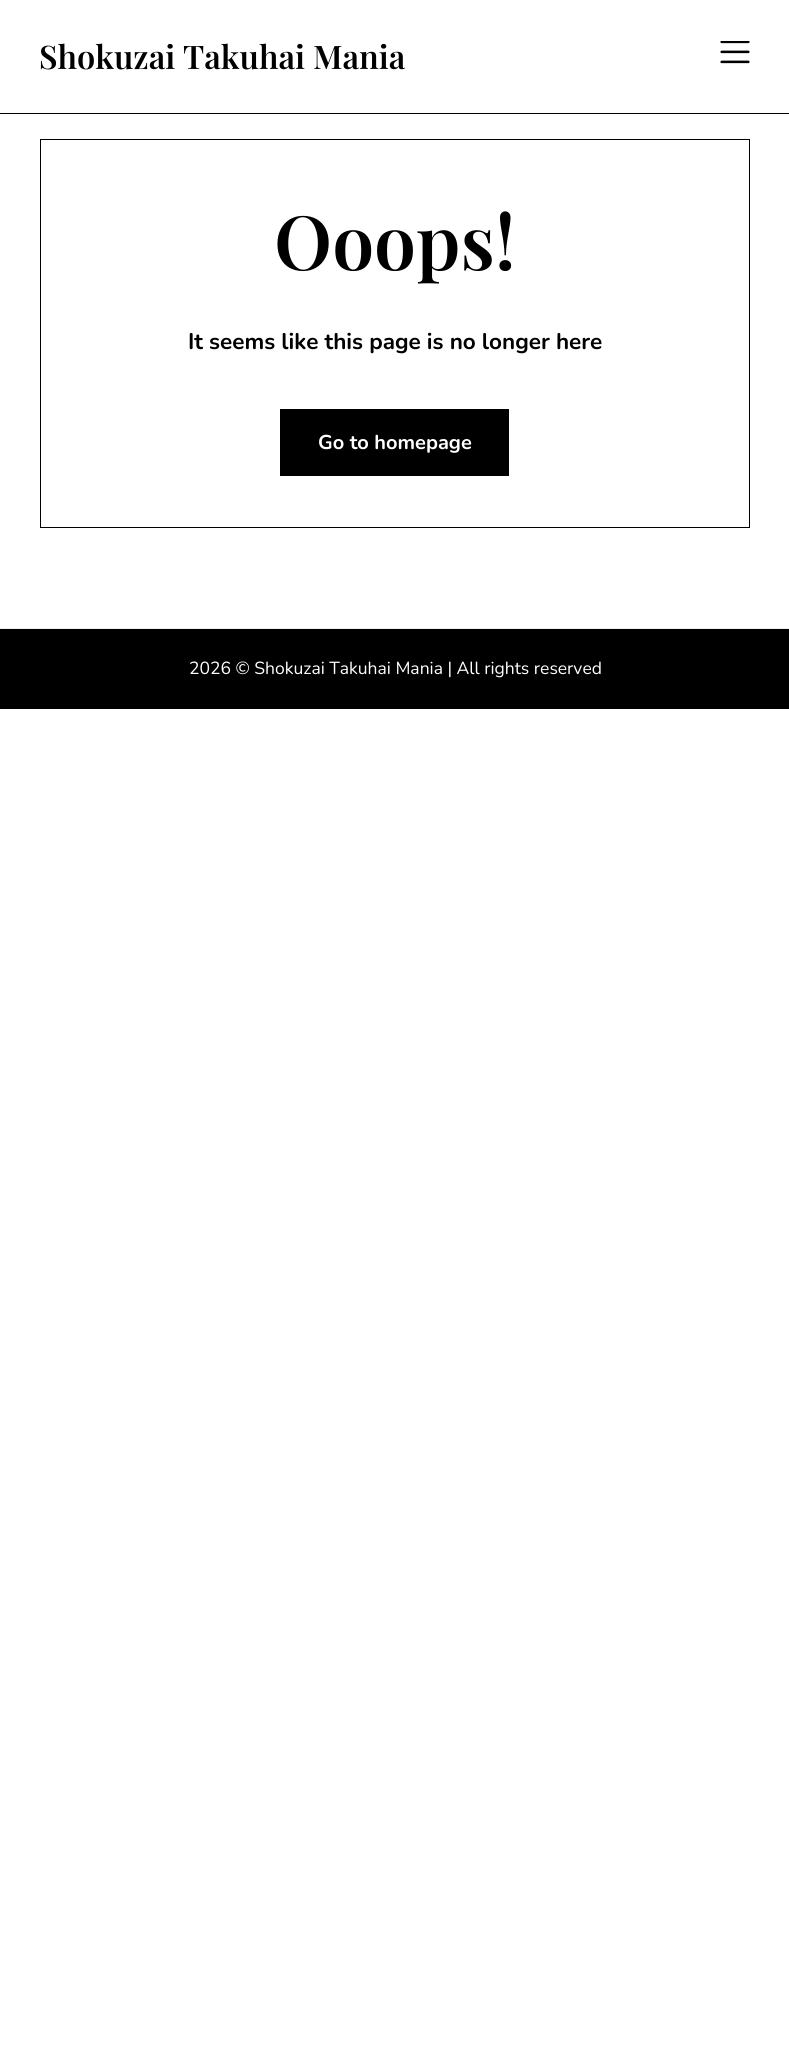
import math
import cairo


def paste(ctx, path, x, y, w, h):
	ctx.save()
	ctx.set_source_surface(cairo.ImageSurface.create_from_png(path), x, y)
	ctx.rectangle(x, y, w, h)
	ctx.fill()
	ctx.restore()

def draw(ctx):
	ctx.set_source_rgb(1, 1, 1)
	ctx.paint()
	ctx.set_source_rgb(0, 0, 0)
	ctx.rectangle(0, 113, 789, 1)
	ctx.fill()
	ctx.select_font_face('Playfair Display SemiBold')
	ctx.set_font_size(32.5)
	ctx.move_to(39, 69)
	ctx.show_text('Shokuzai Takuhai Mania')
	paste(ctx, 'media/1.png', 720, 41, 30, 23)
	ctx.rectangle(40.5, 139.5, 709, 388)
	ctx.set_line_width(1)
	ctx.stroke()
	ctx.set_font_size(75)
	ctx.move_to(274, 270)
	ctx.show_text('Ooops!')
	ctx.select_font_face('Nunito', cairo.FONT_SLANT_NORMAL, cairo.FONT_WEIGHT_BOLD)
	ctx.set_font_size(22.5)
	ctx.move_to(188, 349)
	ctx.show_text('It seems like this page is no longer here')
	ctx.rectangle(280, 409, 229, 67)
	ctx.fill()
	ctx.set_font_size(20)
	ctx.set_source_rgb(1, 1, 1)
	ctx.move_to(318, 449)
	ctx.show_text('Go to homepage')
	ctx.set_source_rgb(0, 0, 0)
	ctx.rectangle(0, 629, 789, 80)
	ctx.fill()
	ctx.set_source_rgb(0.937, 0.937, 0.937)
	ctx.rectangle(0, 628, 789, 1)
	ctx.fill()
	ctx.select_font_face('Nunito')
	ctx.set_font_size(17.5)
	ctx.set_source_rgb(1, 1, 1)
	ctx.move_to(189, 674)
	ctx.show_text('2026 © Shokuzai Takuhai Mania | All rights reserved')


surface = cairo.ImageSurface(cairo.FORMAT_RGB24, 789, 2056)
ctx = cairo.Context(surface)
options = cairo.FontOptions()
options.set_hint_metrics(cairo.HINT_METRICS_OFF)
options.set_hint_style(cairo.HINT_STYLE_NONE)
ctx.set_font_options(options)
ctx.set_miter_limit(4)
draw(ctx)
surface.write_to_png('image.png')
